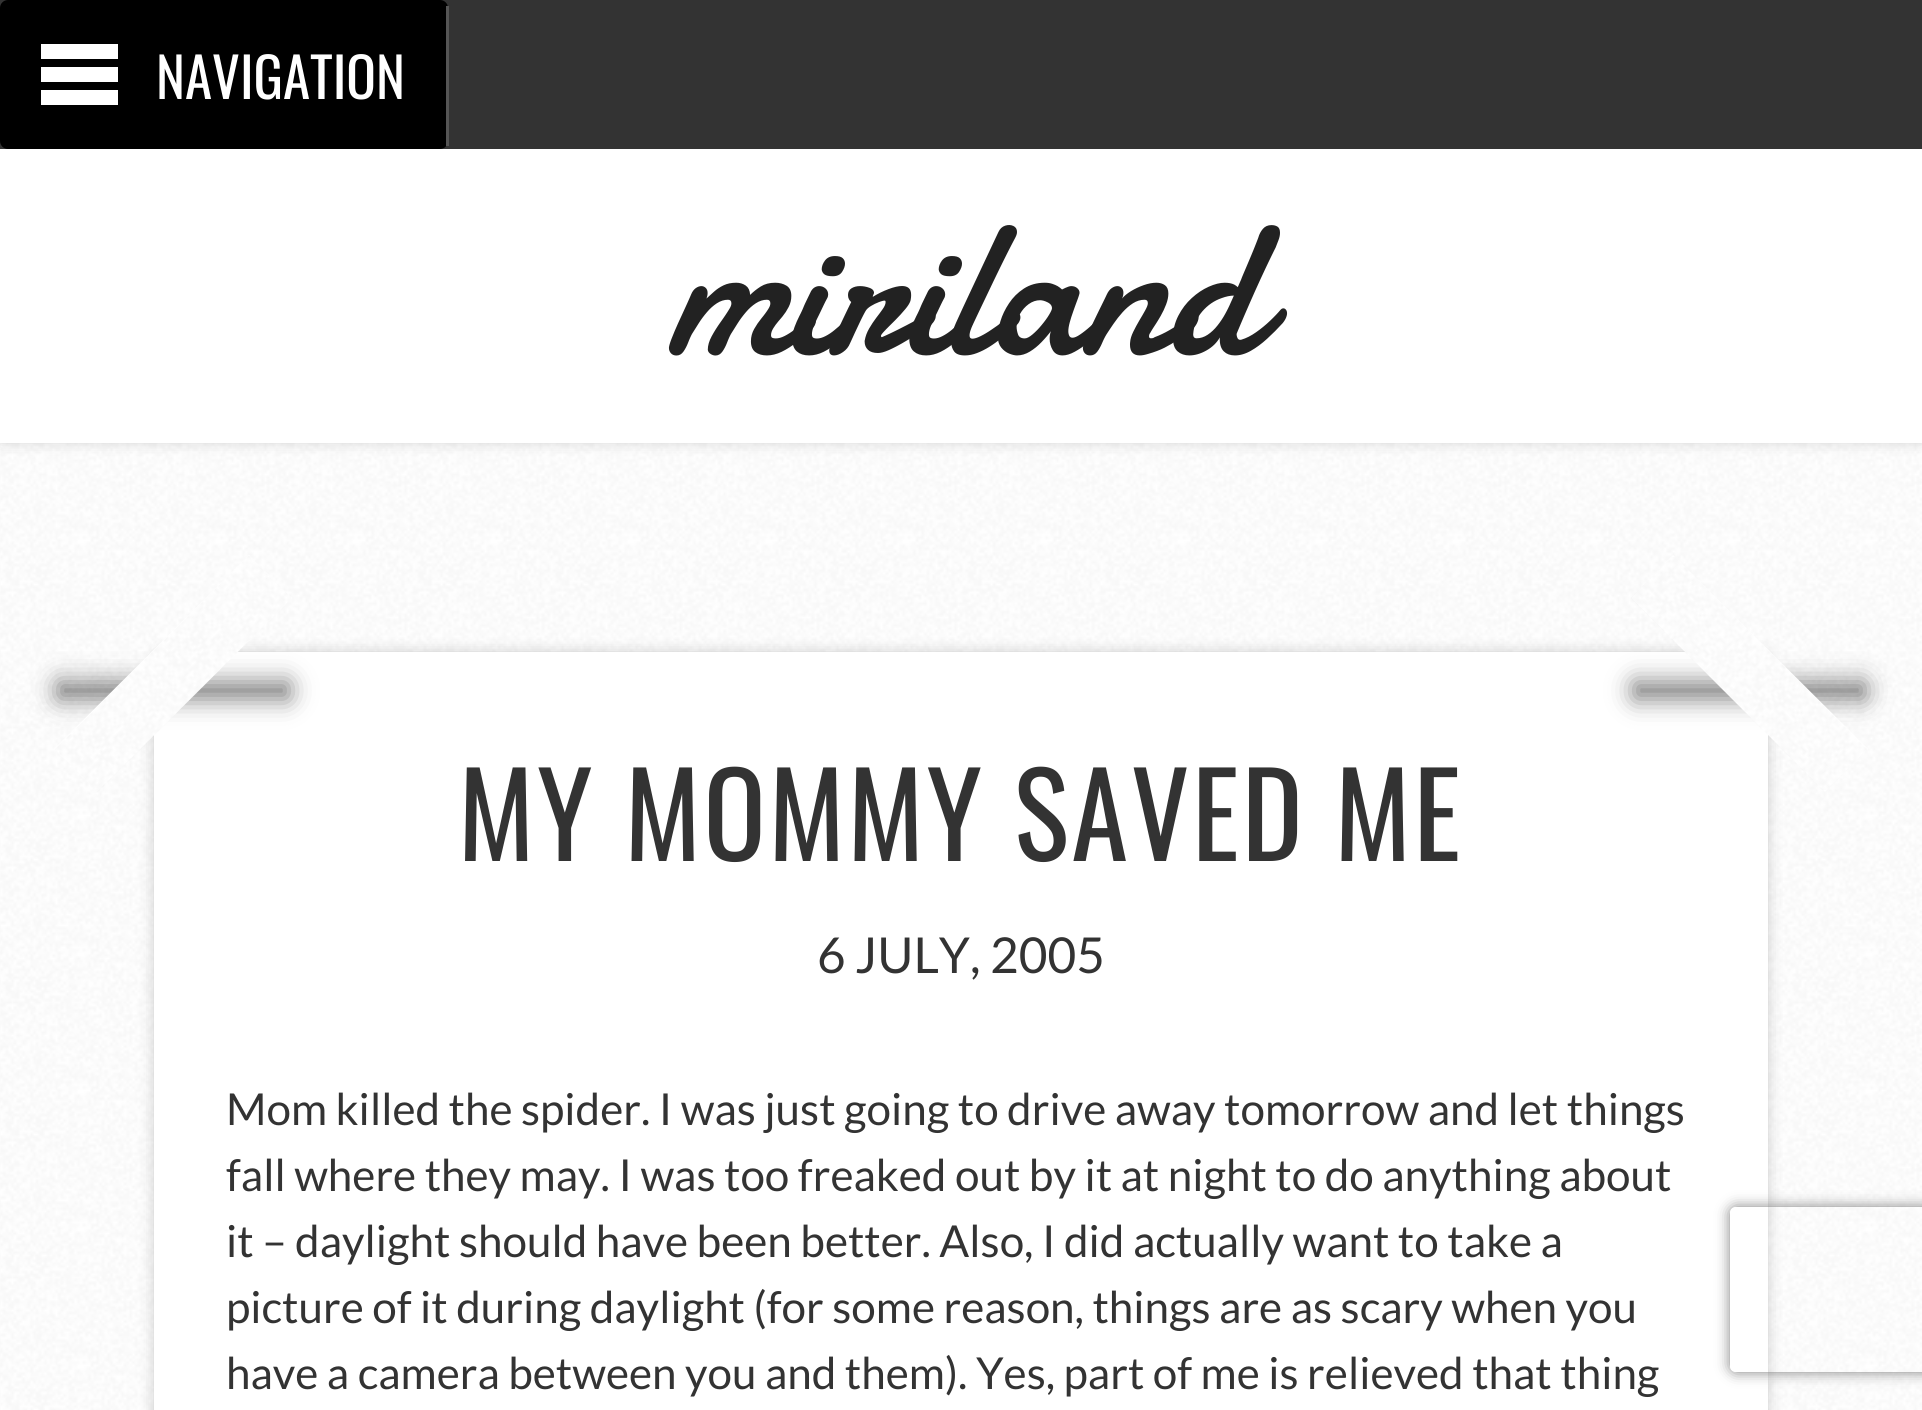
import math
import cairo


def write_spaced(ctx, x, y, s, letter, word):
	ctx.move_to(x, y)
	for ch in s:
		ctx.show_text(ch)
		ctx.rel_move_to(letter + word * (ch == ' '), 0)

def round_path(ctx, x, y, w, h, r):
	ctx.new_sub_path()
	for i, (u, v) in enumerate([(x + w - r, y + h - r), (x + r, y + h - r), (x + r, y + r), (x + w - r, y + r)]):
		ctx.arc(u, v, r, i * math.pi / 2, (i + 1) * math.pi / 2)
	ctx.close_path()

def blur_box(ctx, x, y, w, h, r, blur, alpha):
	ctx.push_group_with_content(cairo.CONTENT_ALPHA)
	ctx.set_operator(cairo.OPERATOR_SOURCE)
	for i in range(15, -16, -2):
		e = blur * i / 6
		if min(w, h) + 2 * e > 0:
			ctx.set_source_rgba(0, 0, 0, alpha * math.erfc((i - 1) / 8.5) / 2)
			round_path(ctx, x - e, y - e, w + 2 * e, h + 2 * e, max(0, min(r + e + blur * .6, min(w, h) / 2 + e)))
			ctx.fill()
	ctx.mask(ctx.pop_group())

def paste(ctx, path, x, y, w, h):
	ctx.save()
	ctx.set_source_surface(cairo.ImageSurface.create_from_png(path), x, y)
	ctx.rectangle(x, y, w, h)
	ctx.fill()
	ctx.restore()

def draw(ctx):
	ctx.set_source_rgb(1, 1, 1)
	ctx.paint()
	paste(ctx, 'media/1.png', 0, 443, 1922, 967)
	ctx.set_source_rgb(0, 0, 0)
	blur_box(ctx, 0, -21, 1922, 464, 0, 7, 0.15)
	ctx.set_source_rgb(0.2, 0.2, 0.2)
	ctx.rectangle(0, 0, 1922, 149)
	ctx.fill()
	ctx.set_source_rgb(0, 0, 0)
	round_path(ctx, 0, 0, 448, 149, 8)
	ctx.fill()
	ctx.set_source_rgb(0.333, 0.333, 0.333)
	ctx.rectangle(446, 6, 3, 140)
	ctx.fill()
	ctx.set_source_rgb(1, 1, 1)
	ctx.rectangle(41, 44, 77, 15)
	ctx.rectangle(41, 67, 77, 15)
	ctx.rectangle(41, 90, 77, 15)
	ctx.fill()
	ctx.select_font_face('Oswald')
	ctx.set_font_size(55)
	ctx.move_to(156, 99)
	ctx.show_text('NAVIGATION')
	ctx.rectangle(0, 149, 1922, 294)
	ctx.fill()
	ctx.select_font_face('Damion')
	ctx.set_font_size(198)
	ctx.set_source_rgb(0.133, 0.133, 0.133)
	write_spaced(ctx, 667, 353, 'miriland', -5.5, 0)
	ctx.set_source_rgb(0, 0, 0)
	blur_box(ctx, 154, 652, 1614, 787, 8, 7, 0.2)
	ctx.set_source_rgb(1, 1, 1)
	ctx.rectangle(154, 652, 1614, 758)
	ctx.fill()
	ctx.set_source_rgb(0, 0, 0)
	blur_box(ctx, 58, 682, 231, 17, 0, 12.5, 0.5)
	ctx.set_source_rgb(1, 1, 1)
	ctx.new_path()
	ctx.move_to(54, 749)
	ctx.line_to(249, 555)
	ctx.line_to(292, 598)
	ctx.line_to(97, 792)
	ctx.close_path()
	ctx.fill()
	paste(ctx, 'media/2.png', 55, 556, 236, 236)
	ctx.set_source_rgb(0, 0, 0)
	blur_box(ctx, 1634, 682, 231, 17, 0, 12.5, 0.5)
	ctx.set_source_rgb(1, 1, 1)
	ctx.new_path()
	ctx.move_to(1673, 555)
	ctx.line_to(1868, 749)
	ctx.line_to(1825, 792)
	ctx.line_to(1631, 598)
	ctx.close_path()
	ctx.fill()
	paste(ctx, 'media/3.png', 1631, 557, 236, 233)
	ctx.select_font_face('Oswald')
	ctx.set_font_size(115.5)
	ctx.set_source_rgb(0.2, 0.2, 0.2)
	write_spaced(ctx, 458, 861, 'MY MOMMY SAVED ME', 2.75, 0)
	ctx.select_font_face('Lato')
	ctx.set_font_size(49.5)
	ctx.move_to(817, 973)
	ctx.show_text('6 JULY, 2005')
	ctx.set_font_size(44)
	for x, y, s in [
		(226, 1125, 'Mom killed the spider. I was just going to drive away tomorrow and let things'),
		(226, 1191, 'fall where they may. I was too freaked out by it at night to do anything about'),
		(226, 1257, 'it – daylight should have been better. Also, I did actually want to take a'),
		(226, 1323, 'picture of it during daylight (for some reason, things are as scary when you'),
		(226, 1389, 'have a camera between you and them). Yes, part of me is relieved that thing'),
	]:
		ctx.move_to(x, y)
		ctx.show_text(s)
	ctx.save()
	ctx.set_fill_rule(cairo.FILL_RULE_EVEN_ODD)
	ctx.new_path()
	ctx.move_to(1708, 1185)
	ctx.line_to(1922, 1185)
	ctx.line_to(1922, 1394)
	ctx.line_to(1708, 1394)
	ctx.close_path()
	ctx.move_to(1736, 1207)
	ctx.line_to(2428, 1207)
	ctx.curve_to(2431.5, 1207, 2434, 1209.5, 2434, 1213)
	ctx.line_to(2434, 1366)
	ctx.curve_to(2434, 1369.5, 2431.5, 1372, 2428, 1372)
	ctx.line_to(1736, 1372)
	ctx.curve_to(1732.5, 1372, 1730, 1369.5, 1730, 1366)
	ctx.line_to(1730, 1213)
	ctx.curve_to(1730, 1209.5, 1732.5, 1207, 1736, 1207)
	ctx.close_path()
	ctx.clip()
	ctx.set_source_rgb(0.502, 0.502, 0.502)
	blur_box(ctx, 1730, 1207, 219, 165, 6, 7, 1)
	ctx.restore()


surface = cairo.ImageSurface(cairo.FORMAT_RGB24, 1922, 1410)
ctx = cairo.Context(surface)
options = cairo.FontOptions()
options.set_hint_metrics(cairo.HINT_METRICS_OFF)
options.set_hint_style(cairo.HINT_STYLE_NONE)
ctx.set_font_options(options)
ctx.set_miter_limit(4)
draw(ctx)
surface.write_to_png('image.png')
